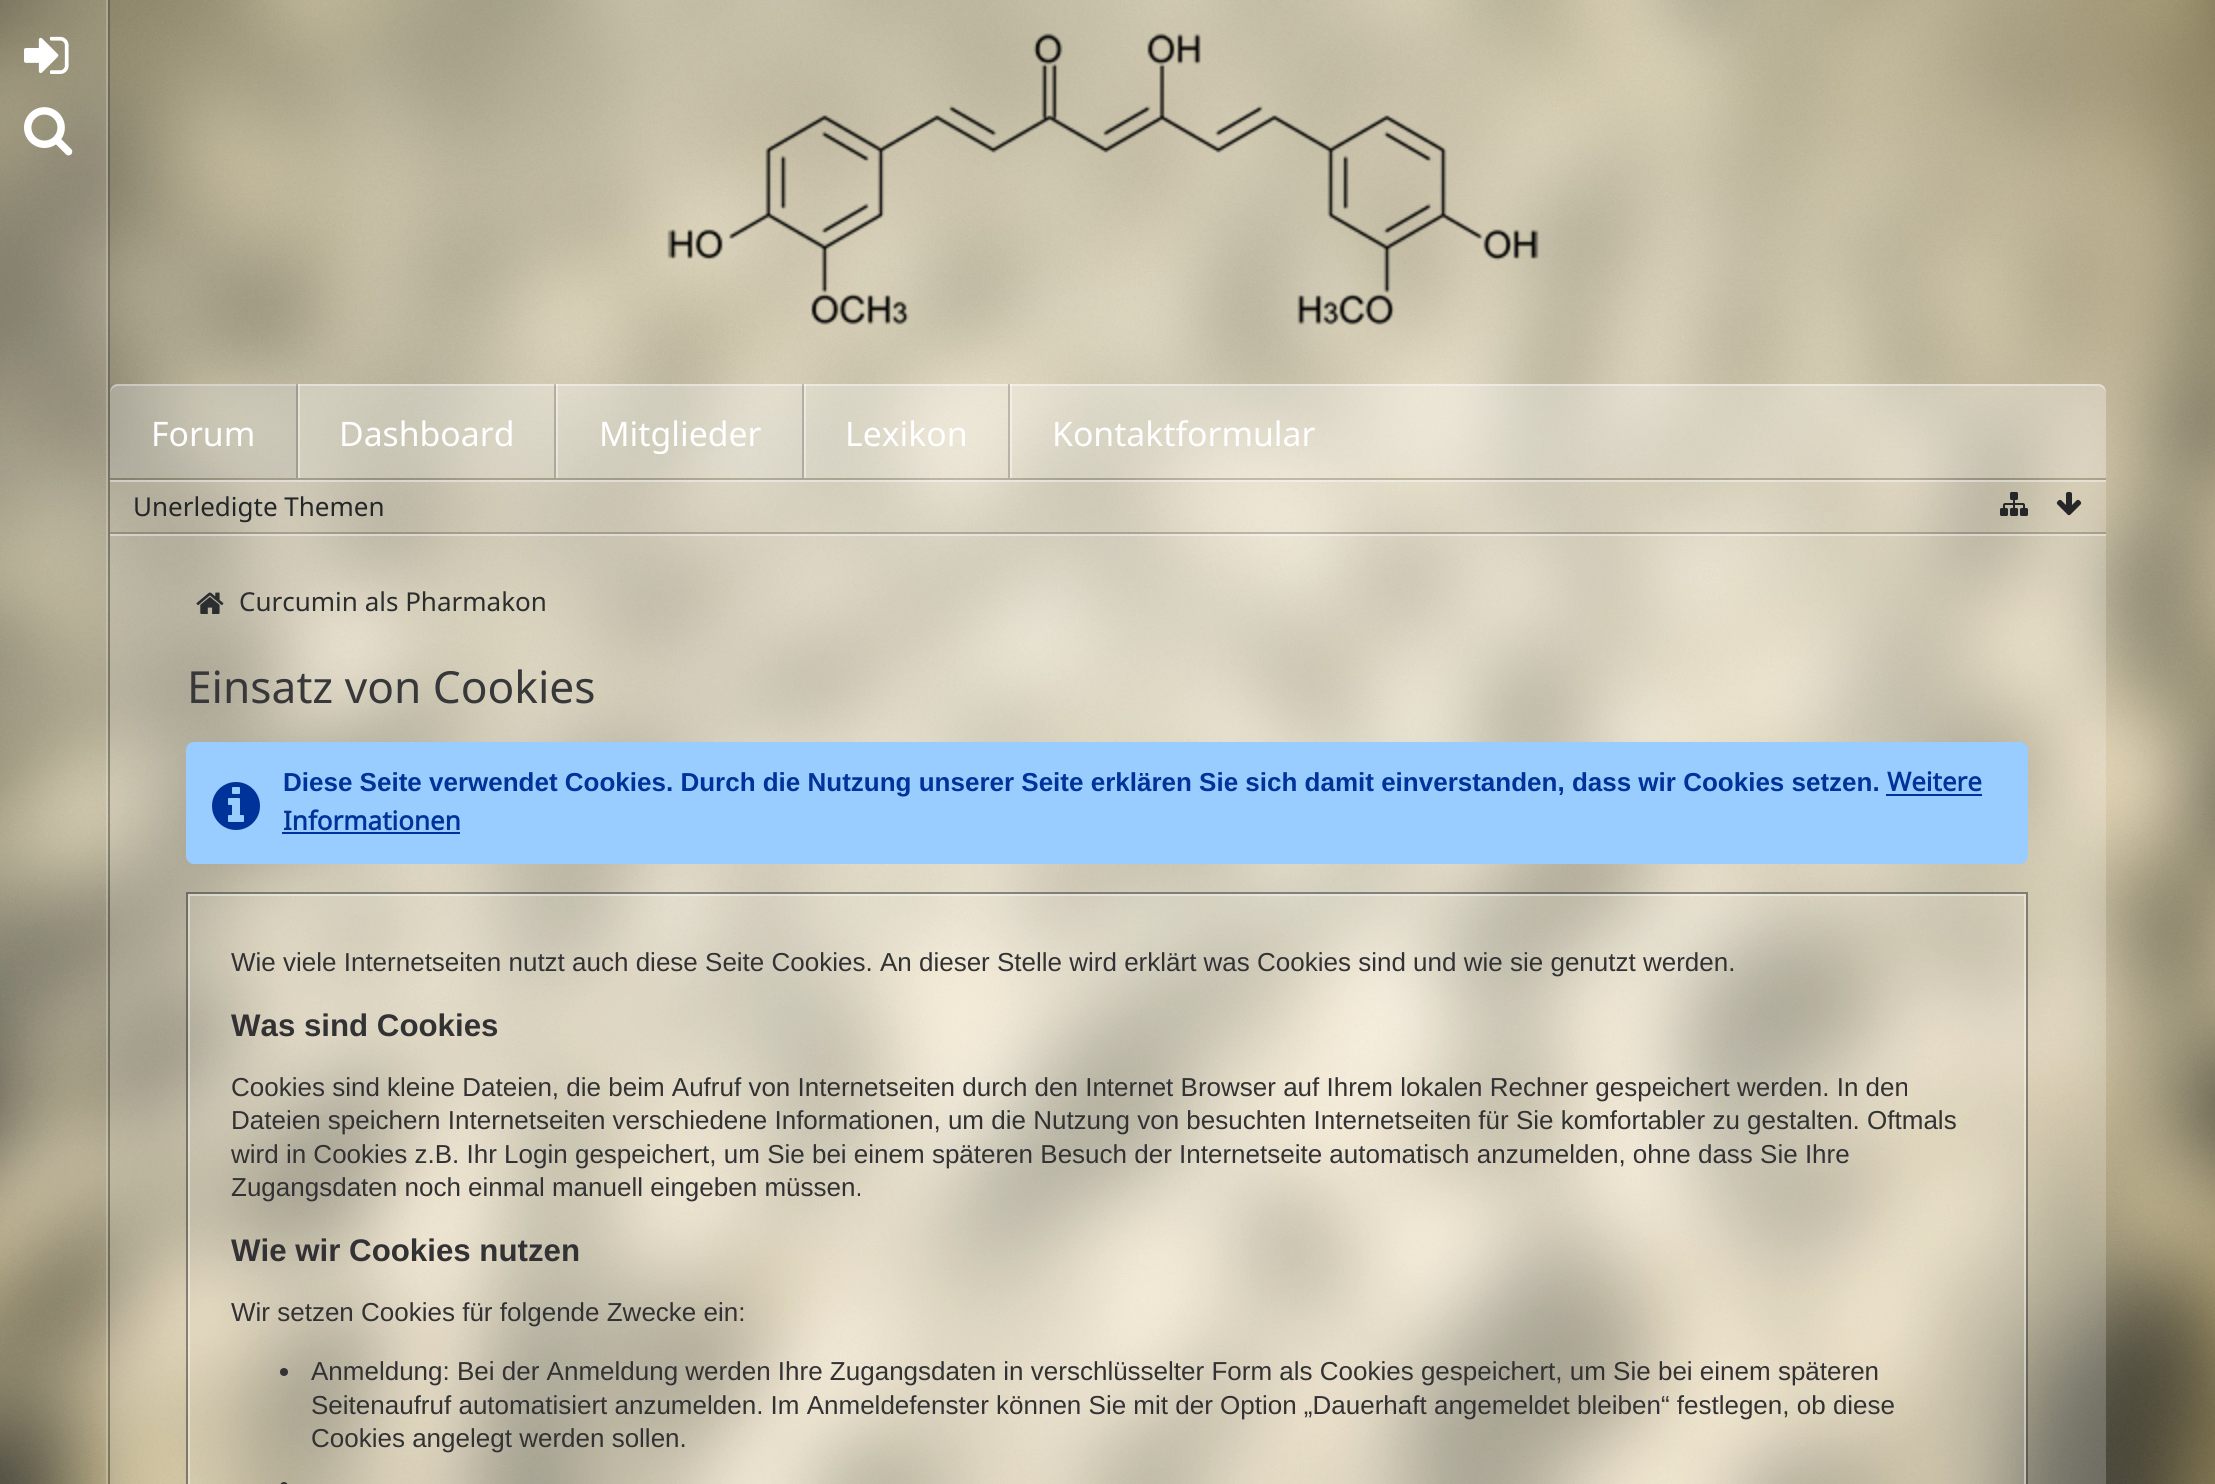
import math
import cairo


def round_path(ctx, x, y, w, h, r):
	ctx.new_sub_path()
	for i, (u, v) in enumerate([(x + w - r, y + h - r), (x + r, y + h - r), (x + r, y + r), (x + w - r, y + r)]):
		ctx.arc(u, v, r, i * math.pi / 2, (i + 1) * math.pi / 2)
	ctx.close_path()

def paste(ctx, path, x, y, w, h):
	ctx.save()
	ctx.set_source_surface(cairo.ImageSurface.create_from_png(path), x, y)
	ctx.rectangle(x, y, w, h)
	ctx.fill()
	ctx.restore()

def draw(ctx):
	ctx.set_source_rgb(1, 1, 1)
	ctx.paint()
	paste(ctx, 'media/1.png', 0, 0, 2215, 1484)
	ctx.set_source_rgba(1, 1, 1, 0.1)
	ctx.rectangle(0, 0, 110, 1484)
	ctx.fill()
	ctx.set_source_rgba(1, 1, 1, 0.2)
	ctx.rectangle(106, 0, 2, 1484)
	ctx.fill()
	ctx.set_source_rgba(0, 0, 0, 0.3)
	ctx.rectangle(108, 0, 2, 1484)
	ctx.fill()
	paste(ctx, 'media/2.png', 24, 36, 45, 38)
	paste(ctx, 'media/3.png', 24, 107, 49, 49)
	paste(ctx, 'media/4.png', 667, 33, 872, 293)
	ctx.set_source_rgba(1, 1, 1, 0.4)
	ctx.rectangle(110, 480, 1996, 2)
	ctx.fill()
	ctx.set_source_rgba(0, 0, 0, 0.15)
	ctx.rectangle(110, 478, 1996, 2)
	ctx.fill()
	ctx.set_source_rgba(1, 1, 1, 0.3)
	ctx.new_path()
	ctx.move_to(118, 384)
	ctx.line_to(2098, 384)
	ctx.curve_to(2102.5, 384, 2106, 387.5, 2106, 392)
	ctx.line_to(2106, 478)
	ctx.line_to(110, 478)
	ctx.line_to(110, 392)
	ctx.curve_to(110, 387.5, 113.5, 384, 118, 384)
	ctx.close_path()
	ctx.fill()
	ctx.set_source_rgba(1, 1, 1, 0.4)
	ctx.new_path()
	ctx.move_to(118, 386)
	ctx.line_to(2098, 386)
	ctx.curve_to(2102, 386, 2106, 390, 2106, 394)
	ctx.curve_to(2106, 389, 2104, 384, 2098, 384)
	ctx.line_to(118, 384)
	ctx.curve_to(112, 384, 110, 389, 110, 394)
	ctx.curve_to(110, 390, 114, 386, 118, 386)
	ctx.close_path()
	ctx.fill()
	ctx.set_source_rgba(0.424, 0.424, 0.424, 0.1)
	ctx.rectangle(110, 384, 188, 94)
	ctx.fill()
	ctx.set_source_rgba(0, 0, 0, 0.2)
	ctx.rectangle(296, 384, 2, 94)
	ctx.fill()
	ctx.select_font_face('Noto Sans')
	ctx.set_font_size(33.75)
	ctx.set_source_rgb(1, 1, 1)
	ctx.move_to(151, 446)
	ctx.show_text('Forum')
	ctx.set_source_rgba(0, 0, 0, 0.2)
	ctx.rectangle(554, 384, 2, 94)
	ctx.fill()
	ctx.set_source_rgba(1, 1, 1, 0.4)
	ctx.rectangle(298, 384, 2, 94)
	ctx.fill()
	ctx.set_source_rgb(1, 1, 1)
	ctx.move_to(339, 446)
	ctx.show_text('Dashboard')
	ctx.set_source_rgba(0, 0, 0, 0.2)
	ctx.rectangle(802, 384, 2, 94)
	ctx.fill()
	ctx.set_source_rgba(1, 1, 1, 0.4)
	ctx.rectangle(556, 384, 2, 94)
	ctx.fill()
	ctx.set_source_rgb(1, 1, 1)
	ctx.move_to(599, 446)
	ctx.show_text('Mitglieder')
	ctx.set_source_rgba(0, 0, 0, 0.2)
	ctx.rectangle(1008, 384, 2, 94)
	ctx.fill()
	ctx.set_source_rgba(1, 1, 1, 0.4)
	ctx.rectangle(804, 384, 2, 94)
	ctx.fill()
	ctx.set_source_rgb(1, 1, 1)
	ctx.move_to(845, 446)
	ctx.show_text('Lexikon')
	ctx.set_source_rgba(1, 1, 1, 0.4)
	ctx.rectangle(1010, 384, 2, 94)
	ctx.fill()
	ctx.set_source_rgb(1, 1, 1)
	ctx.move_to(1052, 446)
	ctx.show_text('Kontaktformular')
	ctx.set_source_rgba(1, 1, 1, 0.2)
	ctx.rectangle(110, 534, 1996, 950)
	ctx.fill()
	ctx.set_source_rgba(1, 1, 1, 0.4)
	ctx.rectangle(110, 534, 1996, 2)
	ctx.fill()
	ctx.set_source_rgba(1, 1, 1, 0.2)
	ctx.rectangle(110, 480, 1996, 54)
	ctx.fill()
	ctx.set_source_rgba(0, 0, 0, 0.2)
	ctx.rectangle(110, 532, 1996, 2)
	ctx.fill()
	ctx.set_font_size(26)
	ctx.set_source_rgb(0.145, 0.149, 0.157)
	ctx.move_to(133, 516)
	ctx.show_text('Unerledigte Themen')
	paste(ctx, 'media/5.png', 2000, 492, 28, 24)
	paste(ctx, 'media/6.png', 2056, 492, 26, 24)
	paste(ctx, 'media/7.png', 196, 592, 28, 22)
	ctx.set_source_rgb(0.173, 0.176, 0.18)
	ctx.move_to(239, 611)
	ctx.show_text('Curcumin als Pharmakon')
	ctx.set_font_size(44.25)
	ctx.set_source_rgb(0.22, 0.22, 0.227)
	ctx.move_to(187, 703)
	ctx.show_text('Einsatz von Cookies')
	ctx.set_source_rgb(0.6, 0.8, 1)
	round_path(ctx, 186, 742, 1842, 122, 8)
	ctx.fill()
	paste(ctx, 'media/8.png', 212, 782, 48, 48)
	ctx.select_font_face('Liberation Sans', cairo.FONT_SLANT_NORMAL, cairo.FONT_WEIGHT_BOLD)
	ctx.set_font_size(26)
	ctx.set_source_rgb(0, 0.2, 0.6)
	ctx.move_to(283, 791)
	ctx.show_text('Diese Seite verwendet Cookies. Durch die Nutzung unserer Seite erklären Sie sich damit einverstanden, dass wir Cookies setzen.')
	ctx.select_font_face('Noto Sans', cairo.FONT_SLANT_NORMAL, cairo.FONT_WEIGHT_BOLD)
	ctx.move_to(1887, 791)
	ctx.show_text('Weitere')
	ctx.rectangle(1886, 794, 96, 2)
	ctx.fill()
	ctx.move_to(283, 830)
	ctx.show_text('Informationen')
	ctx.rectangle(282, 832, 178, 2)
	ctx.fill()
	ctx.set_source_rgba(1, 1, 1, 0.1)
	ctx.rectangle(186, 892, 1842, 592)
	ctx.fill()
	ctx.rectangle(189, 895, 1836, 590)
	ctx.set_source_rgba(1, 1, 1, 0.4)
	ctx.stroke()
	ctx.rectangle(187, 893, 1840, 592)
	ctx.set_source_rgba(0, 0, 0, 0.4)
	ctx.stroke()
	ctx.select_font_face('Liberation Sans')
	ctx.set_source_rgb(0.196, 0.196, 0.204)
	ctx.move_to(231, 971)
	ctx.show_text('Wie viele Internetseiten nutzt auch diese Seite Cookies. An dieser Stelle wird erklärt was Cookies sind und wie sie genutzt werden.')
	ctx.select_font_face('Liberation Sans', cairo.FONT_SLANT_NORMAL, cairo.FONT_WEIGHT_BOLD)
	ctx.set_font_size(31.25)
	ctx.move_to(231, 1036)
	ctx.show_text('Was sind Cookies')
	ctx.select_font_face('Liberation Sans')
	ctx.set_font_size(26)
	for x, y, s in [
		(231, 1096, 'Cookies sind kleine Dateien, die beim Aufruf von Internetseiten durch den Internet Browser auf Ihrem lokalen Rechner gespeichert werden. In den'),
		(231, 1129, 'Dateien speichern Internetseiten verschiedene Informationen, um die Nutzung von besuchten Internetseiten für Sie komfortabler zu gestalten. Oftmals'),
		(231, 1163, 'wird in Cookies z.B. Ihr Login gespeichert, um Sie bei einem späteren Besuch der Internetseite automatisch anzumelden, ohne dass Sie Ihre'),
		(231, 1196, 'Zugangsdaten noch einmal manuell eingeben müssen.'),
	]:
		ctx.move_to(x, y)
		ctx.show_text(s)
	ctx.select_font_face('Liberation Sans', cairo.FONT_SLANT_NORMAL, cairo.FONT_WEIGHT_BOLD)
	ctx.set_font_size(31.25)
	ctx.move_to(231, 1261)
	ctx.show_text('Wie wir Cookies nutzen')
	ctx.select_font_face('Liberation Sans')
	ctx.set_font_size(26)
	ctx.move_to(231, 1321)
	ctx.show_text('Wir setzen Cookies für folgende Zwecke ein:')
	ctx.new_path()
	ctx.arc(284, 1372, 4, 0, 2 * math.pi)
	ctx.fill()
	for x, y, s in [
		(311, 1380, 'Anmeldung: Bei der Anmeldung werden Ihre Zugangsdaten in verschlüsselter Form als Cookies gespeichert, um Sie bei einem späteren'),
		(311, 1414, 'Seitenaufruf automatisiert anzumelden. Im Anmeldefenster können Sie mit der Option „Dauerhaft angemeldet bleiben“ festlegen, ob diese'),
		(311, 1447, 'Cookies angelegt werden sollen.'),
	]:
		ctx.move_to(x, y)
		ctx.show_text(s)
	round_path(ctx, 280, 1482, 8, 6, 4)
	ctx.fill()


surface = cairo.ImageSurface(cairo.FORMAT_RGB24, 2215, 1484)
ctx = cairo.Context(surface)
options = cairo.FontOptions()
options.set_hint_metrics(cairo.HINT_METRICS_OFF)
options.set_hint_style(cairo.HINT_STYLE_NONE)
ctx.set_font_options(options)
ctx.set_miter_limit(4)
draw(ctx)
surface.write_to_png('image.png')
